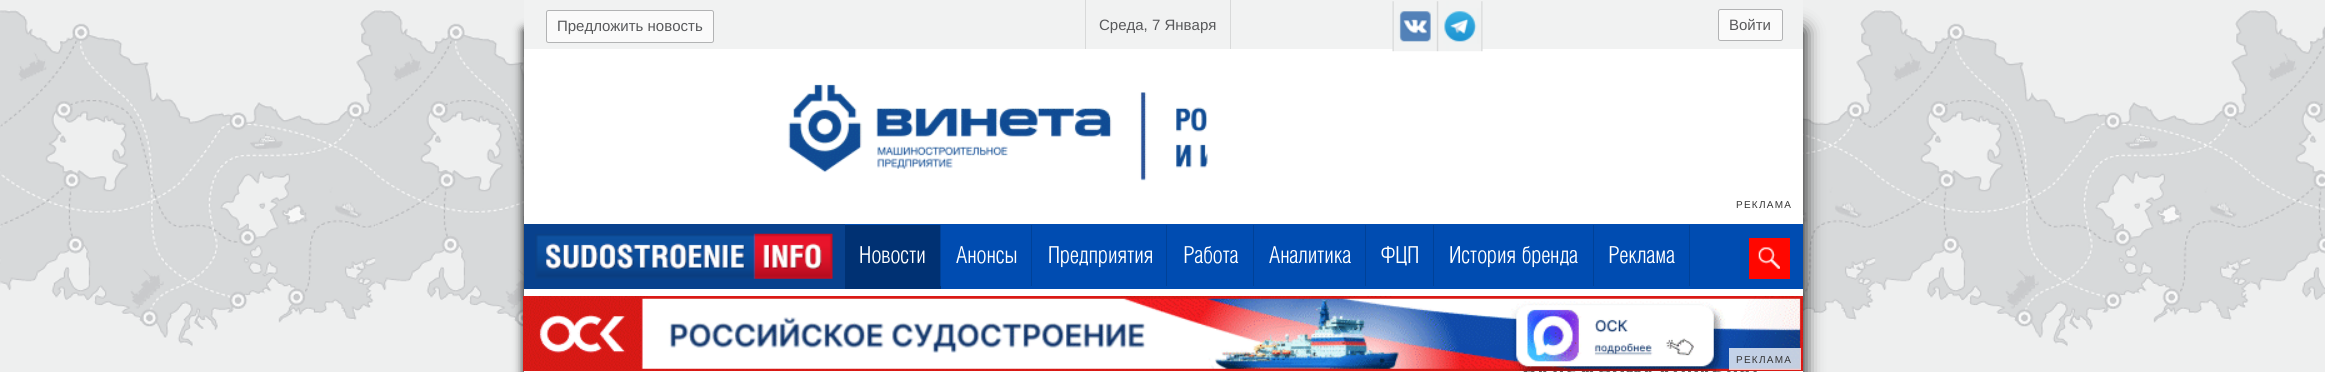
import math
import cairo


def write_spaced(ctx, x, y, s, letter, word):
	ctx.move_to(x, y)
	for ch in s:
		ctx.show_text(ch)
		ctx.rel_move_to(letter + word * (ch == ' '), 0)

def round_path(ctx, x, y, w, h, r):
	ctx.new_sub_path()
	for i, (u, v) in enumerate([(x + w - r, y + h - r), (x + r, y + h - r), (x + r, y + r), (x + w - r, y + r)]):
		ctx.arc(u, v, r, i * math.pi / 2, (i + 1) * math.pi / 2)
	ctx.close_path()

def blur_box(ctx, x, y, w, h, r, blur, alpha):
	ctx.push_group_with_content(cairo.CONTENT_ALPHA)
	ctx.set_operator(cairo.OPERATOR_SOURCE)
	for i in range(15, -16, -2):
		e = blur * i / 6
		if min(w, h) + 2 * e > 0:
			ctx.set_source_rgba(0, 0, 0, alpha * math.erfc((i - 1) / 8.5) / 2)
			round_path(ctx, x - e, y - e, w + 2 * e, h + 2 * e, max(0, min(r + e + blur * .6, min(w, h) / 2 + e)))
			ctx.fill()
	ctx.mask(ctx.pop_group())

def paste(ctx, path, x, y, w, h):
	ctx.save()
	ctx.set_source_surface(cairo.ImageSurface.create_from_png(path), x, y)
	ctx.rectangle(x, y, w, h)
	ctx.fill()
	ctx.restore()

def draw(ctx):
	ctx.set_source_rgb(1, 1, 1)
	ctx.paint()
	paste(ctx, 'media/1.png', 0, 0, 2325, 372)
	ctx.set_source_rgb(0, 0, 0)
	blur_box(ctx, 524, 30, 1249, 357, 0, 5, 1)
	blur_box(ctx, 554, 30, 1249, 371, 0, 9.5, 1)
	ctx.set_source_rgb(1, 1, 1)
	ctx.rectangle(524, 49, 1279, 323)
	ctx.fill()
	ctx.set_source_rgb(0.945, 0.949, 0.949)
	ctx.rectangle(524, 0, 1279, 49)
	ctx.fill()
	ctx.set_source_rgb(0.98, 0.98, 0.98)
	round_path(ctx, 546.5, 10.5, 167, 32, 2)
	ctx.fill_preserve()
	ctx.set_source_rgb(0.698, 0.702, 0.706)
	ctx.set_line_width(1)
	ctx.stroke()
	ctx.select_font_face('Liberation Sans')
	ctx.set_font_size(15)
	ctx.set_source_rgb(0.345, 0.349, 0.357)
	ctx.move_to(557, 31)
	ctx.show_text('Предложить новость')
	ctx.set_source_rgb(0.847, 0.851, 0.851)
	ctx.rectangle(1230, 0, 1, 49)
	ctx.fill()
	ctx.rectangle(1085, 0, 1, 49)
	ctx.fill()
	ctx.set_source_rgb(0.345, 0.349, 0.357)
	ctx.move_to(1099, 30)
	ctx.show_text('Среда, 7 Января')
	paste(ctx, 'media/2.png', 1392, 1, 91, 51)
	ctx.set_source_rgb(0.98, 0.98, 0.98)
	round_path(ctx, 1718.5, 9.5, 64, 31, 2)
	ctx.fill_preserve()
	ctx.set_source_rgb(0.698, 0.702, 0.706)
	ctx.stroke()
	ctx.set_source_rgb(0.345, 0.349, 0.357)
	ctx.move_to(1729, 30)
	ctx.show_text('Войти')
	paste(ctx, 'media/3.png', 523, 57, 686, 159)
	ctx.set_font_size(10)
	ctx.set_source_rgb(0.2, 0.2, 0.2)
	write_spaced(ctx, 1736, 208, 'РЕКЛАМА', 1.25, 0)
	ctx.set_source_rgb(0, 0.298, 0.694)
	ctx.rectangle(845, 224, 958, 65)
	ctx.fill()
	ctx.set_source_rgb(0.035, 0.255, 0.553)
	ctx.rectangle(524, 224, 321, 65)
	ctx.fill()
	paste(ctx, 'media/4.png', 535, 233, 298, 46)
	ctx.set_source_rgb(0, 0.192, 0.451)
	ctx.rectangle(845, 225, 96, 64)
	ctx.fill()
	ctx.select_font_face('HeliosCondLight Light')
	ctx.set_font_size(22.5)
	ctx.set_source_rgb(1, 1, 1)
	ctx.move_to(859, 263)
	ctx.show_text('Новости')
	ctx.set_source_rgb(0, 0.255, 0.592)
	ctx.rectangle(940, 225, 1, 61)
	ctx.fill()
	ctx.set_source_rgb(1, 1, 1)
	ctx.move_to(956, 263)
	ctx.show_text('Анонсы')
	ctx.set_source_rgb(0, 0.255, 0.592)
	ctx.rectangle(1031, 225, 1, 61)
	ctx.fill()
	ctx.set_source_rgb(1, 1, 1)
	ctx.move_to(1048, 263)
	ctx.show_text('Предприятия')
	ctx.set_source_rgb(0, 0.255, 0.592)
	ctx.rectangle(1166, 225, 1, 61)
	ctx.fill()
	ctx.set_source_rgb(1, 1, 1)
	ctx.move_to(1183, 263)
	ctx.show_text('Работа')
	ctx.set_source_rgb(0, 0.255, 0.592)
	ctx.rectangle(1253, 225, 1, 61)
	ctx.fill()
	ctx.set_source_rgb(1, 1, 1)
	ctx.move_to(1269, 263)
	ctx.show_text('Аналитика')
	ctx.set_source_rgb(0, 0.255, 0.592)
	ctx.rectangle(1365, 225, 1, 61)
	ctx.fill()
	ctx.set_source_rgb(1, 1, 1)
	ctx.move_to(1381, 263)
	ctx.show_text('ФЦП')
	ctx.set_source_rgb(0, 0.255, 0.592)
	ctx.rectangle(1433, 225, 1, 61)
	ctx.fill()
	ctx.set_source_rgb(1, 1, 1)
	ctx.move_to(1449, 263)
	ctx.show_text('История бренда')
	ctx.set_source_rgb(0, 0.255, 0.592)
	ctx.rectangle(1593, 225, 1, 61)
	ctx.fill()
	ctx.set_source_rgb(1, 1, 1)
	ctx.move_to(1608, 263)
	ctx.show_text('Реклама')
	ctx.set_source_rgb(0, 0.255, 0.592)
	ctx.rectangle(1689, 225, 1, 61)
	ctx.fill()
	ctx.set_source_rgb(1, 0.031, 0)
	ctx.rectangle(1749, 238, 41, 41)
	ctx.fill()
	paste(ctx, 'media/5.png', 1758, 247, 22, 22)
	paste(ctx, 'media/6.png', 1490, 371, 310, 1)
	paste(ctx, 'media/7.png', 523, 296, 1280, 75)
	ctx.set_source_rgba(1, 1, 1, 0.75)
	ctx.rectangle(1729, 348, 72, 22)
	ctx.fill()
	ctx.select_font_face('Liberation Sans')
	ctx.set_font_size(10)
	ctx.set_source_rgb(0.2, 0.2, 0.2)
	write_spaced(ctx, 1736, 363, 'РЕКЛАМА', 1.25, 0)


surface = cairo.ImageSurface(cairo.FORMAT_RGB24, 2325, 372)
ctx = cairo.Context(surface)
options = cairo.FontOptions()
options.set_hint_metrics(cairo.HINT_METRICS_OFF)
options.set_hint_style(cairo.HINT_STYLE_NONE)
ctx.set_font_options(options)
ctx.set_miter_limit(4)
draw(ctx)
surface.write_to_png('image.png')
